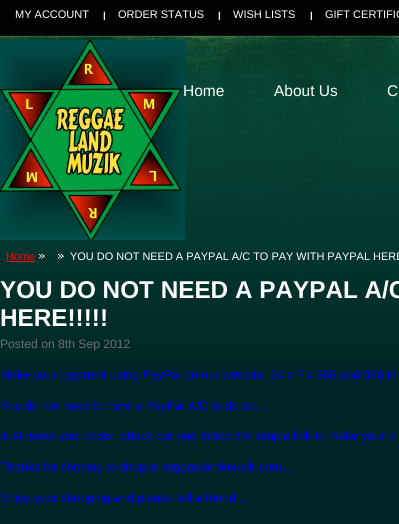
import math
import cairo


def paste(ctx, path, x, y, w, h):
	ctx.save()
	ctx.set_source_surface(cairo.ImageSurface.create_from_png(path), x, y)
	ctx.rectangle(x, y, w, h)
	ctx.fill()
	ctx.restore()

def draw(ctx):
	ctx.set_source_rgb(0, 0.141, 0.145)
	ctx.paint()
	paste(ctx, 'media/1.png', 0, 0, 399, 361)
	ctx.select_font_face('Liberation Sans')
	ctx.set_font_size(11)
	ctx.set_source_rgb(1, 1, 1)
	ctx.move_to(15, 18)
	ctx.show_text('MY ACCOUNT')
	paste(ctx, 'media/2.png', 103, 11, 2, 9)
	ctx.move_to(118, 18)
	ctx.show_text('ORDER STATUS')
	paste(ctx, 'media/2.png', 218, 11, 2, 9)
	ctx.move_to(233, 18)
	ctx.show_text('WISH LISTS')
	paste(ctx, 'media/2.png', 310, 11, 2, 9)
	ctx.move_to(325, 18)
	ctx.show_text('GIFT CERTIFIC')
	paste(ctx, 'media/3.png', 0, 40, 185, 200)
	ctx.set_font_size(15.5)
	for x, y, s in [
		(183, 96, 'Home'),
		(274, 96, 'About Us'),
		(387, 96, 'C'),
	]:
		ctx.move_to(x, y)
		ctx.show_text(s)
	ctx.set_font_size(10.95)
	ctx.set_source_rgb(1, 0, 0)
	ctx.move_to(6, 260)
	ctx.show_text('Home')
	ctx.rectangle(6, 261, 29, 1)
	ctx.fill()
	paste(ctx, 'media/4.png', 39, 253, 6, 6)
	paste(ctx, 'media/5.png', 58, 253, 6, 6)
	ctx.set_source_rgb(1, 1, 1)
	ctx.move_to(70, 260)
	ctx.show_text('YOU DO NOT NEED A PAYPAL A/C TO PAY WITH PAYPAL HERE')
	ctx.select_font_face('Liberation Sans', cairo.FONT_SLANT_NORMAL, cairo.FONT_WEIGHT_BOLD)
	ctx.set_font_size(24.3)
	ctx.move_to(0, 298)
	ctx.show_text('YOU DO NOT NEED A PAYPAL A/C')
	ctx.move_to(0, 326)
	ctx.show_text('HERE!!!!!')
	ctx.select_font_face('Liberation Sans')
	ctx.set_font_size(12.15)
	ctx.set_source_rgb(0.431, 0.431, 0.431)
	ctx.move_to(0, 348)
	ctx.show_text('Posted on 8th Sep 2012')
	ctx.set_source_rgb(0, 0, 1)
	for x, y, s in [
		(0, 379, 'Make your payment using PayPal on our website, 24 x 7 x 365 and 366 in'),
		(0, 410, 'You do not need to have a PayPal A/C to do so....'),
		(0, 440, 'Just make your order, check out and follow the simple link to make your p'),
		(0, 471, 'Thanks for chosing to shop at reggaelandmuzik.com....'),
		(0, 502, 'Enjoy your shopping and please tell a friend...'),
	]:
		ctx.move_to(x, y)
		ctx.show_text(s)


surface = cairo.ImageSurface(cairo.FORMAT_RGB24, 399, 524)
ctx = cairo.Context(surface)
options = cairo.FontOptions()
options.set_hint_metrics(cairo.HINT_METRICS_OFF)
options.set_hint_style(cairo.HINT_STYLE_NONE)
ctx.set_font_options(options)
ctx.set_miter_limit(4)
draw(ctx)
surface.write_to_png('image.png')
